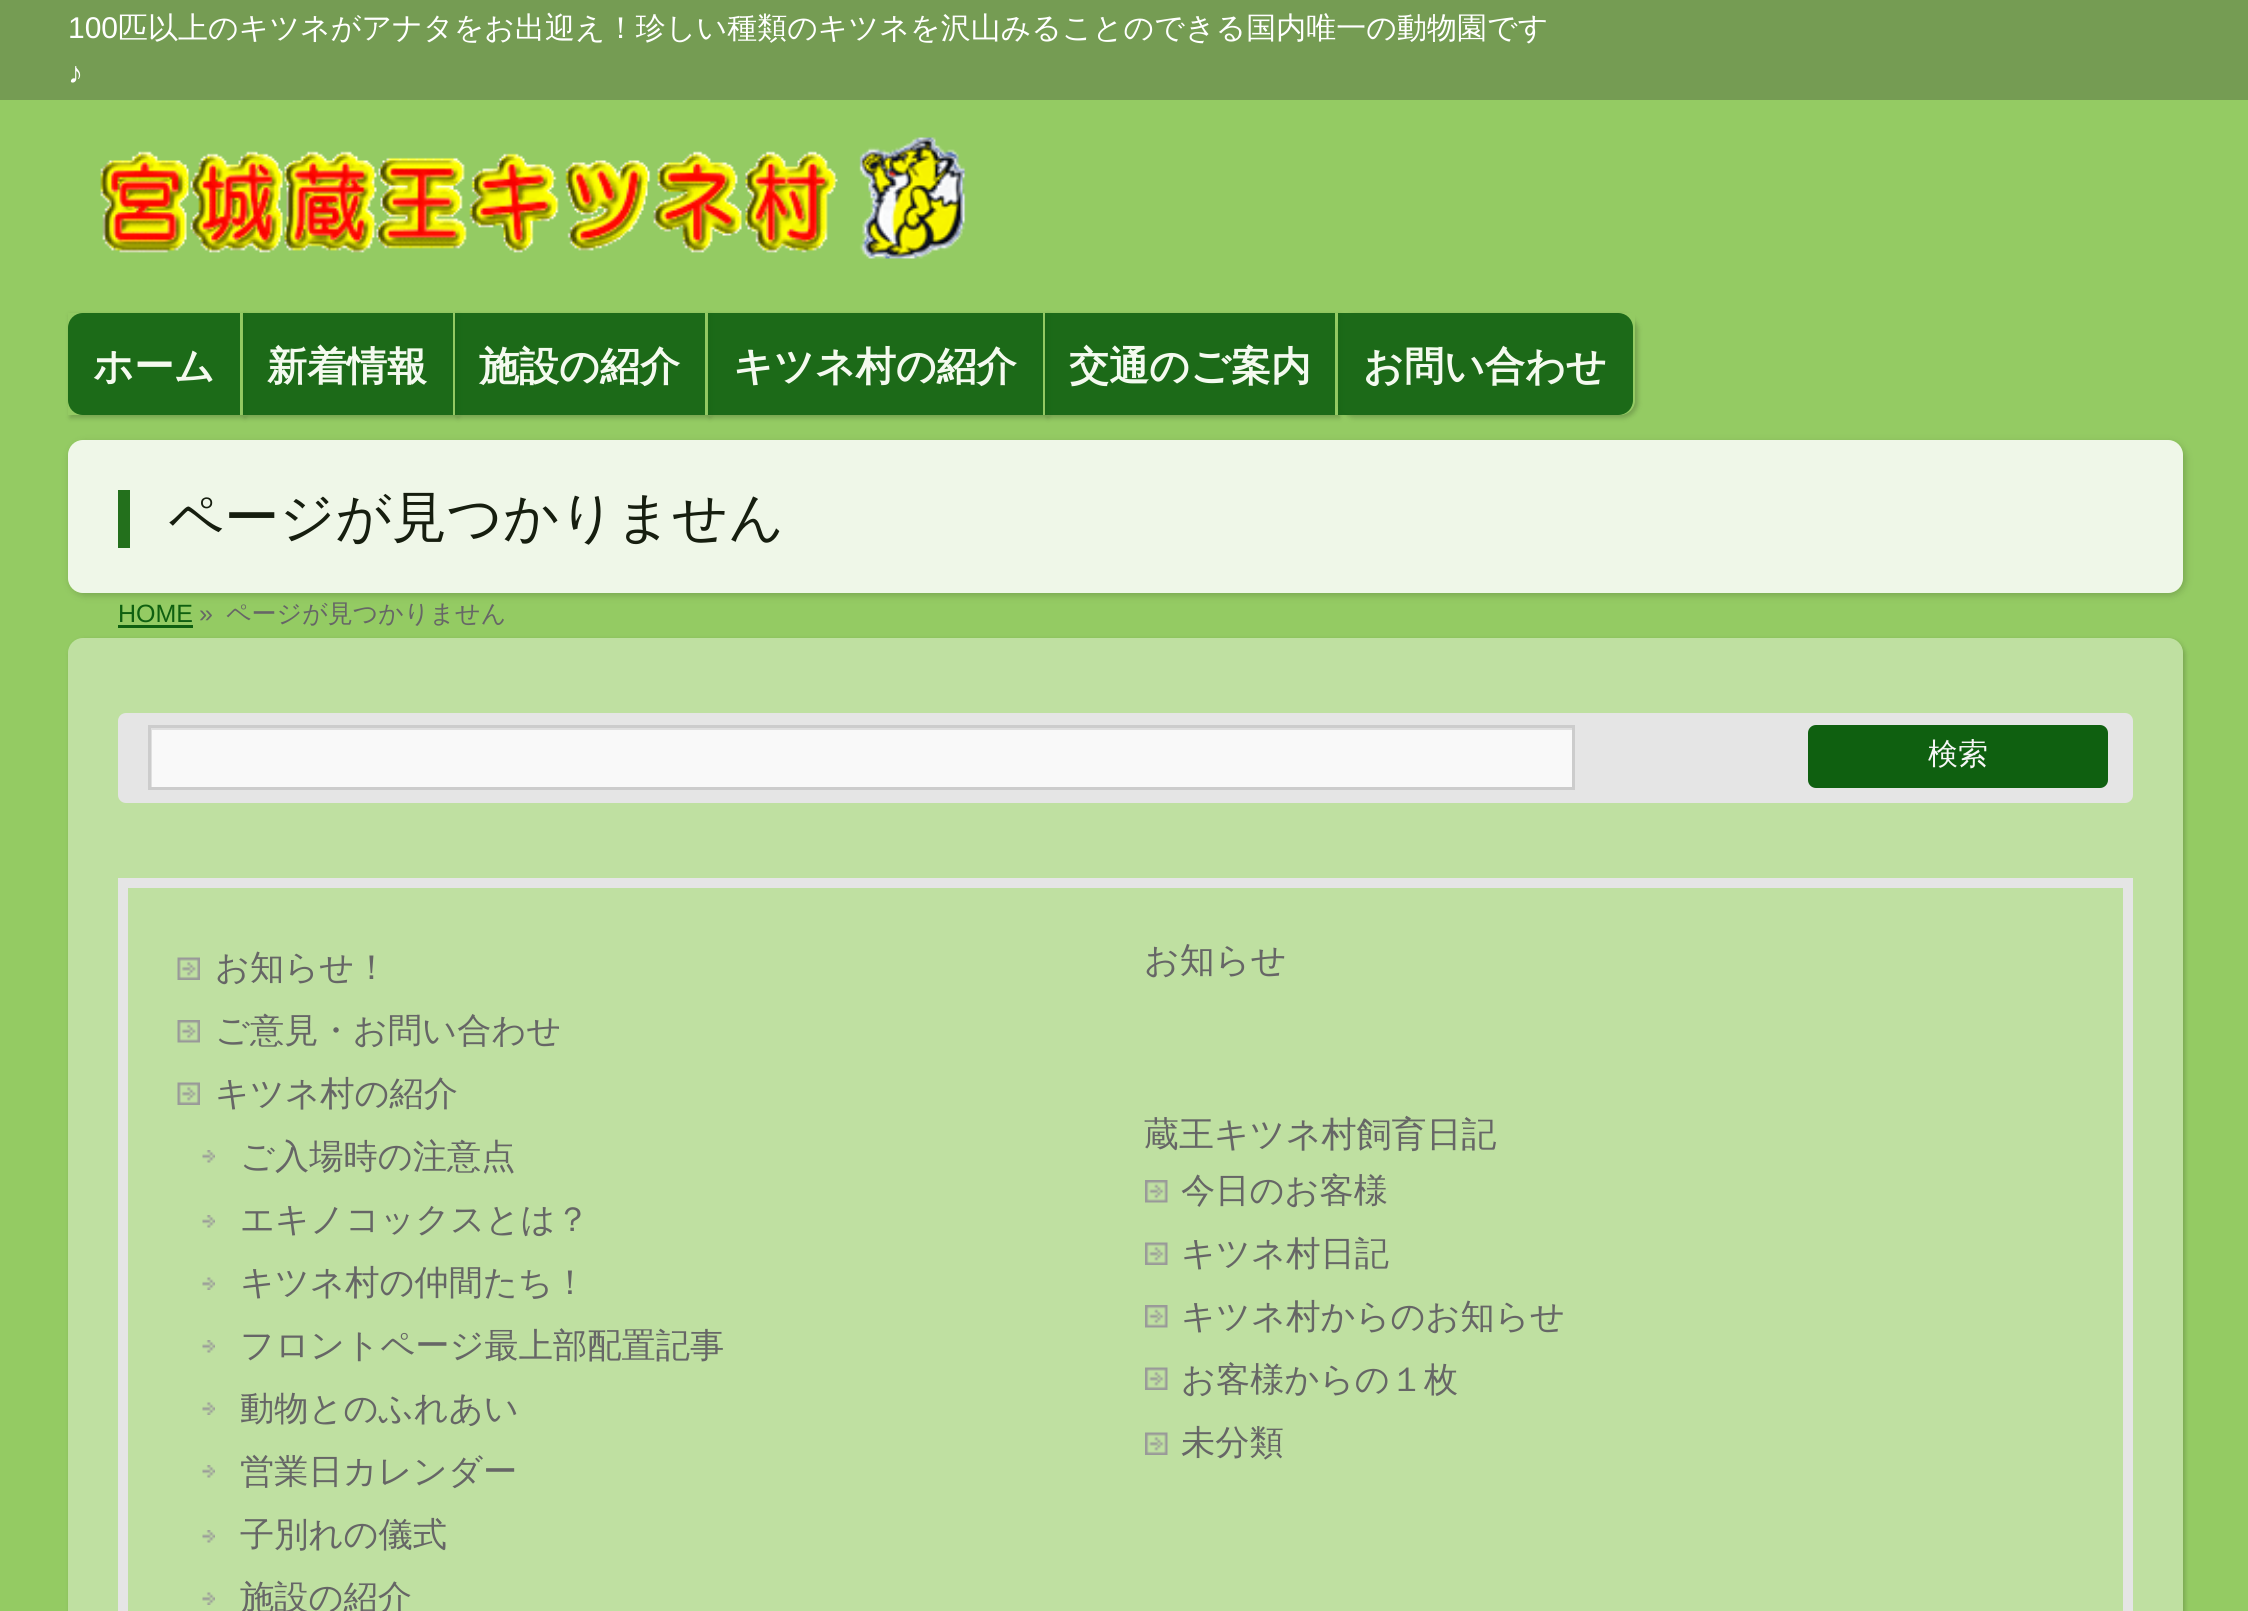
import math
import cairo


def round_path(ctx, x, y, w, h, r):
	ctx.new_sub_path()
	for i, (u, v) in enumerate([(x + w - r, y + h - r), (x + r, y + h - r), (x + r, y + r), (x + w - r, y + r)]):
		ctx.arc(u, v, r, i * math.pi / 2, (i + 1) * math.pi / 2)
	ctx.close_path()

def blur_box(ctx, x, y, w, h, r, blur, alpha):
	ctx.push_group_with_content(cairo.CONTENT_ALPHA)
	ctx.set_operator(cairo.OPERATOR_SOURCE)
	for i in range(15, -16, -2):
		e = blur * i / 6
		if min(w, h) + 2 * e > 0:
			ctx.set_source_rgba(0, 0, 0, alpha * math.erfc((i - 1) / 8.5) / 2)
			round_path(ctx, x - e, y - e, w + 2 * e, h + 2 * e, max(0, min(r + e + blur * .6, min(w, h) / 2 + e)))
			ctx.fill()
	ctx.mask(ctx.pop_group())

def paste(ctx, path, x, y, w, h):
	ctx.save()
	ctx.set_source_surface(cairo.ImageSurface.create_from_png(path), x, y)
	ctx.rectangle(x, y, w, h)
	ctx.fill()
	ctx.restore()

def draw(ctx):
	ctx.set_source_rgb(0.58, 0.796, 0.388)
	ctx.paint()
	ctx.set_source_rgb(0.459, 0.612, 0.325)
	ctx.rectangle(0, 0, 2248, 100)
	ctx.fill()
	ctx.select_font_face('Liberation Sans')
	ctx.set_font_size(30)
	ctx.set_source_rgb(1, 1, 1)
	ctx.move_to(68, 38)
	ctx.show_text('100')
	ctx.select_font_face('WenQuanYi Zen Hei Medium')
	ctx.move_to(118, 38)
	ctx.show_text('匹以上のキツネがアナタをお出迎え！珍しい種類のキツネを沢山みることのできる国内唯一の動物園です')
	ctx.select_font_face('Liberation Sans')
	ctx.move_to(68, 83)
	ctx.show_text('♪')
	paste(ctx, 'media/1.png', 100, 137, 866, 122)
	ctx.save()
	ctx.set_fill_rule(cairo.FILL_RULE_EVEN_ODD)
	ctx.new_path()
	ctx.move_to(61, 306)
	ctx.line_to(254, 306)
	ctx.line_to(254, 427)
	ctx.line_to(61, 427)
	ctx.close_path()
	ctx.move_to(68, 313)
	ctx.line_to(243, 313)
	ctx.line_to(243, 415)
	ctx.line_to(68, 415)
	ctx.close_path()
	ctx.clip()
	ctx.set_source_rgb(0, 0, 0)
	blur_box(ctx, 70, 315, 175, 103, 0, 2.5, 0.2)
	ctx.restore()
	ctx.set_source_rgb(0.11, 0.42, 0.094)
	ctx.new_path()
	ctx.move_to(83, 313)
	ctx.line_to(240, 313)
	ctx.line_to(240, 415)
	ctx.line_to(83, 415)
	ctx.curve_to(74.5, 415, 68, 408.5, 68, 400)
	ctx.line_to(68, 328)
	ctx.curve_to(68, 319.5, 74.5, 313, 83, 313)
	ctx.close_path()
	ctx.fill()
	ctx.select_font_face('WenQuanYi Zen Hei', cairo.FONT_SLANT_NORMAL, cairo.FONT_WEIGHT_BOLD)
	ctx.set_font_size(40)
	ctx.set_source_rgb(0.957, 0.98, 0.937)
	ctx.move_to(93, 380)
	ctx.show_text('ホーム')
	ctx.save()
	ctx.set_fill_rule(cairo.FILL_RULE_EVEN_ODD)
	ctx.new_path()
	ctx.move_to(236, 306)
	ctx.line_to(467, 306)
	ctx.line_to(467, 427)
	ctx.line_to(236, 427)
	ctx.close_path()
	ctx.move_to(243, 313)
	ctx.line_to(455, 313)
	ctx.line_to(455, 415)
	ctx.line_to(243, 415)
	ctx.close_path()
	ctx.clip()
	ctx.set_source_rgb(0, 0, 0)
	blur_box(ctx, 245, 315, 213, 103, 0, 2.5, 0.2)
	ctx.restore()
	ctx.set_source_rgba(0.059, 0.376, 0.063, 0.9)
	ctx.rectangle(243, 313, 210, 102)
	ctx.fill()
	ctx.set_source_rgb(0.957, 0.98, 0.937)
	ctx.move_to(267, 380)
	ctx.show_text('新着情報')
	ctx.save()
	ctx.set_fill_rule(cairo.FILL_RULE_EVEN_ODD)
	ctx.new_path()
	ctx.move_to(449, 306)
	ctx.line_to(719, 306)
	ctx.line_to(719, 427)
	ctx.line_to(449, 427)
	ctx.close_path()
	ctx.move_to(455, 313)
	ctx.line_to(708, 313)
	ctx.line_to(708, 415)
	ctx.line_to(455, 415)
	ctx.close_path()
	ctx.clip()
	ctx.set_source_rgb(0, 0, 0)
	blur_box(ctx, 458, 315, 252, 103, 0, 2.5, 0.2)
	ctx.restore()
	ctx.set_source_rgba(0.059, 0.376, 0.063, 0.9)
	ctx.rectangle(455, 313, 250, 102)
	ctx.fill()
	ctx.set_source_rgb(0.957, 0.98, 0.937)
	ctx.move_to(479, 380)
	ctx.show_text('施設の紹介')
	ctx.save()
	ctx.set_fill_rule(cairo.FILL_RULE_EVEN_ODD)
	ctx.new_path()
	ctx.move_to(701, 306)
	ctx.line_to(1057, 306)
	ctx.line_to(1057, 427)
	ctx.line_to(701, 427)
	ctx.close_path()
	ctx.move_to(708, 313)
	ctx.line_to(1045, 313)
	ctx.line_to(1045, 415)
	ctx.line_to(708, 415)
	ctx.close_path()
	ctx.clip()
	ctx.set_source_rgb(0, 0, 0)
	blur_box(ctx, 710, 315, 338, 103, 0, 2.5, 0.2)
	ctx.restore()
	ctx.set_source_rgba(0.059, 0.376, 0.063, 0.9)
	ctx.rectangle(708, 313, 335, 102)
	ctx.fill()
	ctx.set_source_rgb(0.957, 0.98, 0.937)
	ctx.move_to(733, 380)
	ctx.show_text('キツネ村の紹介')
	ctx.save()
	ctx.set_fill_rule(cairo.FILL_RULE_EVEN_ODD)
	ctx.new_path()
	ctx.move_to(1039, 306)
	ctx.line_to(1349, 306)
	ctx.line_to(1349, 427)
	ctx.line_to(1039, 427)
	ctx.close_path()
	ctx.move_to(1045, 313)
	ctx.line_to(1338, 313)
	ctx.line_to(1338, 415)
	ctx.line_to(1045, 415)
	ctx.close_path()
	ctx.clip()
	ctx.set_source_rgb(0, 0, 0)
	blur_box(ctx, 1048, 315, 292, 103, 0, 2.5, 0.2)
	ctx.restore()
	ctx.set_source_rgba(0.059, 0.376, 0.063, 0.9)
	ctx.rectangle(1045, 313, 290, 102)
	ctx.fill()
	ctx.set_source_rgb(0.957, 0.98, 0.937)
	ctx.move_to(1069, 380)
	ctx.show_text('交通のご案内')
	ctx.save()
	ctx.set_fill_rule(cairo.FILL_RULE_EVEN_ODD)
	ctx.new_path()
	ctx.move_to(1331, 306)
	ctx.line_to(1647, 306)
	ctx.line_to(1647, 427)
	ctx.line_to(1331, 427)
	ctx.close_path()
	ctx.move_to(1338, 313)
	ctx.line_to(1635, 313)
	ctx.line_to(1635, 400)
	ctx.curve_to(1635, 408.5, 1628.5, 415, 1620, 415)
	ctx.line_to(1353, 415)
	ctx.curve_to(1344.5, 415, 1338, 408.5, 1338, 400)
	ctx.close_path()
	ctx.clip()
	ctx.set_source_rgb(0, 0, 0)
	blur_box(ctx, 1340, 315, 298, 103, 15, 2.5, 0.2)
	ctx.restore()
	ctx.set_source_rgba(0.059, 0.376, 0.063, 0.9)
	ctx.new_path()
	ctx.move_to(1338, 313)
	ctx.line_to(1618, 313)
	ctx.curve_to(1626.5, 313, 1633, 319.5, 1633, 328)
	ctx.line_to(1633, 400)
	ctx.curve_to(1633, 408.5, 1626.5, 415, 1618, 415)
	ctx.line_to(1338, 415)
	ctx.close_path()
	ctx.fill()
	ctx.set_source_rgb(0.957, 0.98, 0.937)
	ctx.move_to(1363, 380)
	ctx.show_text('お問い合わせ')
	ctx.save()
	ctx.set_fill_rule(cairo.FILL_RULE_EVEN_ODD)
	ctx.new_path()
	ctx.move_to(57, 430)
	ctx.line_to(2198, 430)
	ctx.line_to(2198, 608)
	ctx.line_to(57, 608)
	ctx.close_path()
	ctx.move_to(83, 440)
	ctx.line_to(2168, 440)
	ctx.curve_to(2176.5, 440, 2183, 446.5, 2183, 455)
	ctx.line_to(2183, 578)
	ctx.curve_to(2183, 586.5, 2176.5, 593, 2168, 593)
	ctx.line_to(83, 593)
	ctx.curve_to(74.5, 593, 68, 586.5, 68, 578)
	ctx.line_to(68, 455)
	ctx.curve_to(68, 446.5, 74.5, 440, 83, 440)
	ctx.close_path()
	ctx.clip()
	ctx.set_source_rgb(0, 0, 0)
	blur_box(ctx, 70, 443, 2115, 152, 15, 4, 0.2)
	ctx.restore()
	ctx.set_source_rgba(1, 1, 1, 0.85)
	round_path(ctx, 68, 440, 2115, 153, 15)
	ctx.fill()
	ctx.set_source_rgb(0.137, 0.439, 0.11)
	ctx.rectangle(118, 490, 12, 58)
	ctx.fill()
	ctx.select_font_face('WenQuanYi Zen Hei Medium')
	ctx.set_font_size(55)
	ctx.set_source_rgb(0.086, 0.118, 0.059)
	ctx.move_to(168, 536)
	ctx.show_text('ページが見つかりません')
	ctx.select_font_face('Liberation Sans')
	ctx.set_font_size(25)
	ctx.set_source_rgb(0.059, 0.376, 0.063)
	ctx.move_to(118, 622)
	ctx.show_text('HOME')
	ctx.rectangle(118, 625, 75, 3)
	ctx.fill()
	ctx.set_source_rgb(0.4, 0.4, 0.4)
	ctx.move_to(199, 622)
	ctx.show_text('»')
	ctx.select_font_face('WenQuanYi Zen Hei Medium')
	ctx.move_to(226, 622)
	ctx.show_text('ページが見つかりません')
	ctx.save()
	ctx.set_fill_rule(cairo.FILL_RULE_EVEN_ODD)
	ctx.new_path()
	ctx.move_to(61, 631)
	ctx.line_to(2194, 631)
	ctx.line_to(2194, 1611)
	ctx.line_to(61, 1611)
	ctx.close_path()
	ctx.move_to(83, 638)
	ctx.line_to(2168, 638)
	ctx.curve_to(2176.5, 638, 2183, 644.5, 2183, 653)
	ctx.line_to(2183, 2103)
	ctx.curve_to(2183, 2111.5, 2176.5, 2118, 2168, 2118)
	ctx.line_to(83, 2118)
	ctx.curve_to(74.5, 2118, 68, 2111.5, 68, 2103)
	ctx.line_to(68, 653)
	ctx.curve_to(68, 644.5, 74.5, 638, 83, 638)
	ctx.close_path()
	ctx.clip()
	ctx.set_source_rgb(0, 0, 0)
	blur_box(ctx, 70, 640, 2115, 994, 15, 2.5, 0.2)
	ctx.restore()
	ctx.set_source_rgba(1, 1, 1, 0.4)
	round_path(ctx, 68, 638, 2115, 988, 15)
	ctx.fill()
	ctx.set_source_rgb(0.898, 0.898, 0.898)
	round_path(ctx, 118, 713, 2015, 90, 8)
	ctx.fill()
	ctx.set_source_rgb(0.976, 0.976, 0.976)
	ctx.rectangle(152, 730, 1420, 57)
	ctx.fill()
	ctx.save()
	ctx.rectangle(150, 728, 1423, 60)
	ctx.clip()
	ctx.set_source_rgb(0.878, 0.878, 0.878)
	ctx.set_fill_rule(cairo.FILL_RULE_EVEN_ODD)
	ctx.new_path()
	ctx.move_to(126, 713)
	ctx.line_to(1820, 713)
	ctx.line_to(1820, 803)
	ctx.line_to(126, 803)
	ctx.curve_to(122, 803, 118, 799, 118, 795)
	ctx.line_to(118, 721)
	ctx.curve_to(118, 717, 122, 713, 126, 713)
	ctx.close_path()
	ctx.move_to(152, 730)
	ctx.line_to(152, 790)
	ctx.line_to(1575, 790)
	ctx.line_to(1575, 730)
	ctx.close_path()
	ctx.fill()
	ctx.restore()
	ctx.rectangle(149.5, 726.5, 1424, 62)
	ctx.set_source_rgb(0.8, 0.8, 0.8)
	ctx.set_line_width(3)
	ctx.stroke()
	ctx.set_source_rgb(0.059, 0.376, 0.063)
	round_path(ctx, 1808, 725, 300, 63, 8)
	ctx.fill()
	ctx.set_font_size(30)
	ctx.set_source_rgb(0.961, 0.961, 0.961)
	ctx.move_to(1928, 764)
	ctx.show_text('検索')
	ctx.rectangle(123, 883, 2005, 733)
	ctx.set_source_rgb(0.898, 0.898, 0.898)
	ctx.set_line_width(10)
	ctx.stroke()
	paste(ctx, 'media/2.png', 177, 957, 23, 23)
	ctx.set_font_size(34.25)
	ctx.set_source_rgb(0.4, 0.4, 0.4)
	ctx.move_to(215, 979)
	ctx.show_text('お知らせ！')
	paste(ctx, 'media/3.png', 177, 1020, 23, 23)
	ctx.move_to(215, 1042)
	ctx.show_text('ご意見・お問い合わせ')
	paste(ctx, 'media/2.png', 177, 1082, 23, 23)
	ctx.move_to(215, 1105)
	ctx.show_text('キツネ村の紹介')
	paste(ctx, 'media/4.png', 202, 1150, 13, 13)
	ctx.move_to(240, 1168)
	ctx.show_text('ご入場時の注意点')
	paste(ctx, 'media/4.png', 202, 1215, 13, 13)
	ctx.move_to(240, 1231)
	ctx.show_text('エキノコックスとは？')
	paste(ctx, 'media/5.png', 202, 1277, 13, 13)
	ctx.move_to(240, 1294)
	ctx.show_text('キツネ村の仲間たち！')
	paste(ctx, 'media/4.png', 202, 1340, 13, 13)
	ctx.move_to(240, 1357)
	ctx.show_text('フロントページ最上部配置記事')
	paste(ctx, 'media/5.png', 202, 1402, 13, 13)
	ctx.move_to(240, 1420)
	ctx.show_text('動物とのふれあい')
	paste(ctx, 'media/4.png', 202, 1465, 13, 13)
	ctx.move_to(240, 1483)
	ctx.show_text('営業日カレンダー')
	paste(ctx, 'media/4.png', 202, 1530, 13, 13)
	ctx.move_to(240, 1546)
	ctx.show_text('子別れの儀式')
	paste(ctx, 'media/5.png', 202, 1592, 13, 13)
	ctx.move_to(240, 1609)
	ctx.show_text('施設の紹介')
	ctx.set_font_size(35)
	ctx.move_to(1144, 972)
	ctx.show_text('お知らせ')
	ctx.move_to(1144, 1146)
	ctx.show_text('蔵王キツネ村飼育日記')
	paste(ctx, 'media/6.png', 1145, 1180, 23, 23)
	ctx.set_font_size(34.25)
	ctx.move_to(1181, 1202)
	ctx.show_text('今日のお客様')
	paste(ctx, 'media/7.png', 1145, 1242, 23, 23)
	ctx.move_to(1181, 1265)
	ctx.show_text('キツネ村日記')
	paste(ctx, 'media/6.png', 1145, 1305, 23, 23)
	ctx.move_to(1181, 1328)
	ctx.show_text('キツネ村からのお知らせ')
	paste(ctx, 'media/7.png', 1145, 1367, 23, 23)
	ctx.move_to(1181, 1391)
	ctx.show_text('お客様からの１枚')
	paste(ctx, 'media/7.png', 1145, 1432, 23, 23)
	ctx.move_to(1181, 1454)
	ctx.show_text('未分類')


surface = cairo.ImageSurface(cairo.FORMAT_RGB24, 2248, 1611)
ctx = cairo.Context(surface)
options = cairo.FontOptions()
options.set_hint_metrics(cairo.HINT_METRICS_OFF)
options.set_hint_style(cairo.HINT_STYLE_NONE)
ctx.set_font_options(options)
ctx.set_miter_limit(4)
draw(ctx)
surface.write_to_png('image.png')
